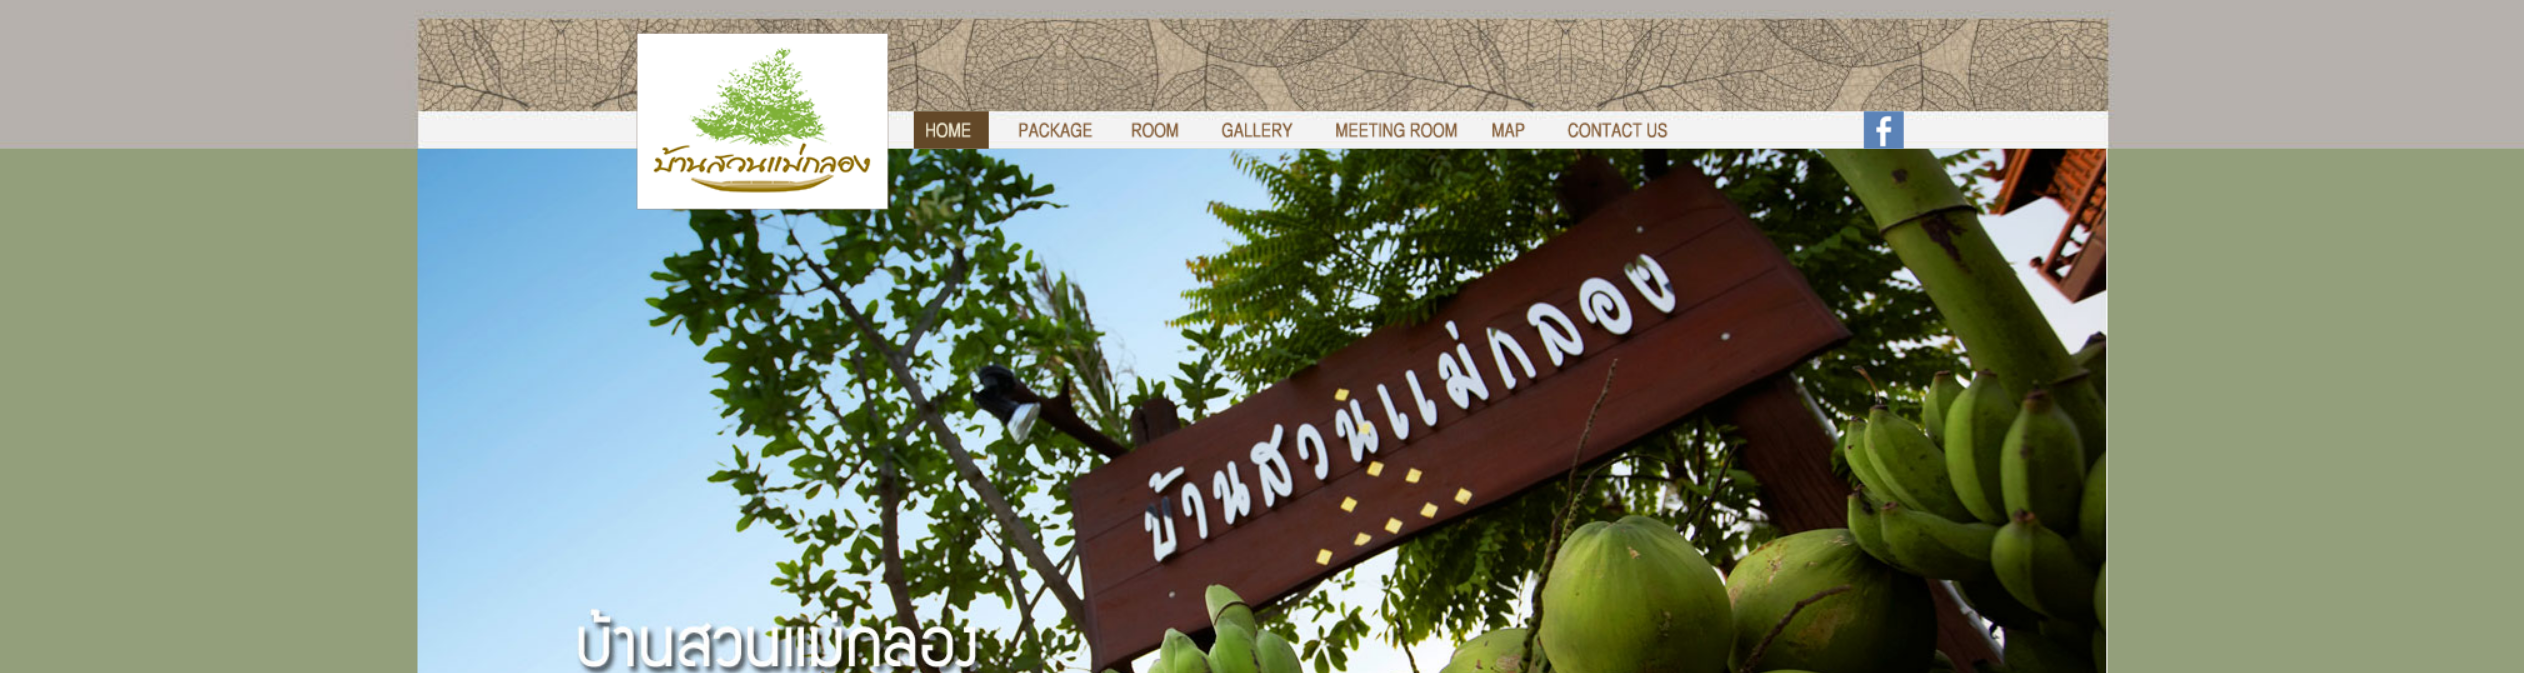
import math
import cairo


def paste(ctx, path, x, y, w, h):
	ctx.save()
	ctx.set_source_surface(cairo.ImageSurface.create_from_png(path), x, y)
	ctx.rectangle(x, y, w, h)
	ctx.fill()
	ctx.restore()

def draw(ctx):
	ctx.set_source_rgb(1, 1, 1)
	ctx.paint()
	paste(ctx, 'media/1.png', 0, 0, 2524, 673)
	paste(ctx, 'media/11.png', 417, 148, 1691, 525)
	paste(ctx, 'media/2.png', 636, 32, 253, 178)
	paste(ctx, 'media/3.png', 913, 111, 76, 38)
	paste(ctx, 'media/4.png', 1018, 122, 75, 16)
	paste(ctx, 'media/5.png', 1131, 122, 48, 16)
	paste(ctx, 'media/6.png', 1221, 122, 72, 16)
	paste(ctx, 'media/7.png', 1336, 122, 122, 16)
	paste(ctx, 'media/8.png', 1492, 122, 34, 16)
	paste(ctx, 'media/9.png', 1567, 122, 101, 16)
	paste(ctx, 'media/10.png', 1863, 111, 41, 38)


surface = cairo.ImageSurface(cairo.FORMAT_RGB24, 2524, 673)
ctx = cairo.Context(surface)
options = cairo.FontOptions()
options.set_hint_metrics(cairo.HINT_METRICS_OFF)
options.set_hint_style(cairo.HINT_STYLE_NONE)
ctx.set_font_options(options)
ctx.set_miter_limit(4)
draw(ctx)
surface.write_to_png('image.png')
